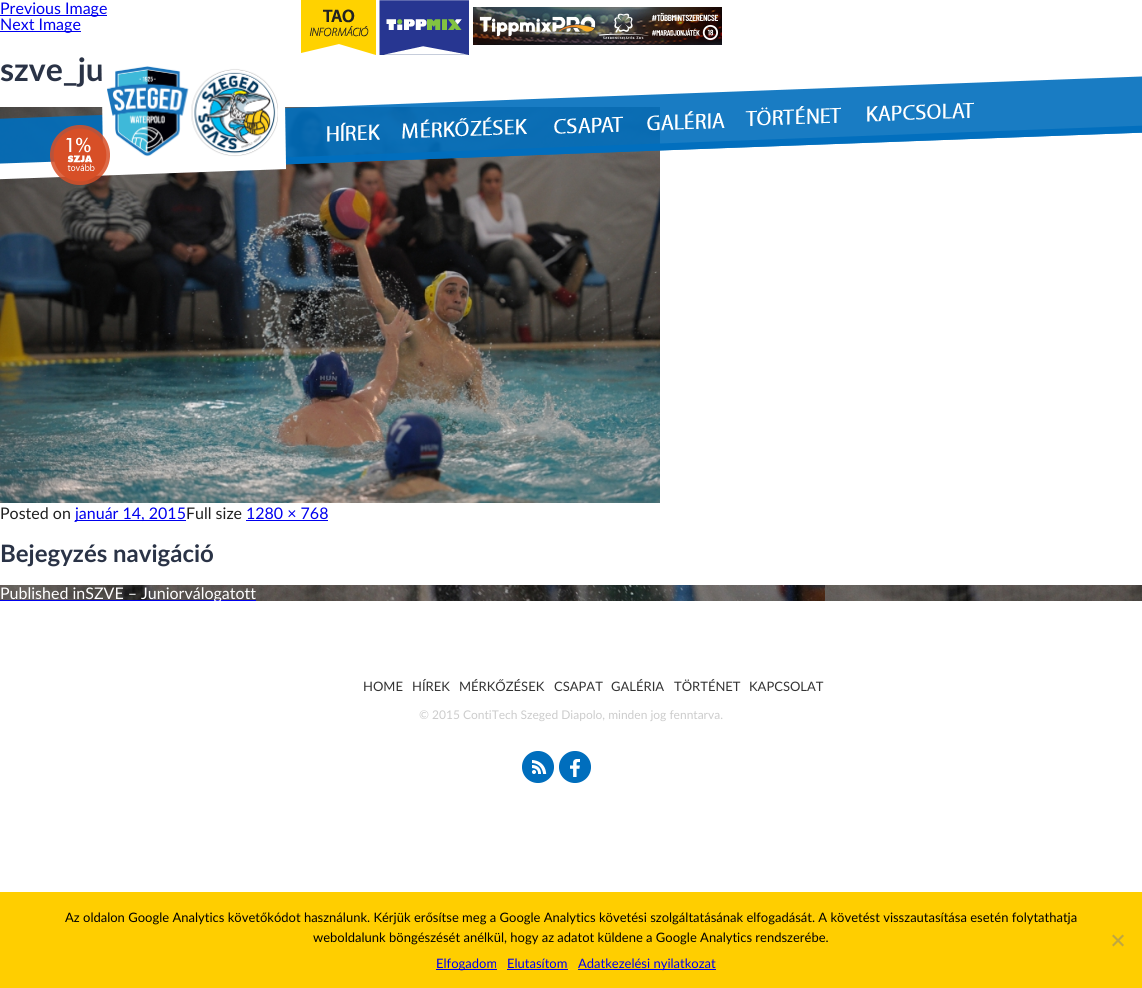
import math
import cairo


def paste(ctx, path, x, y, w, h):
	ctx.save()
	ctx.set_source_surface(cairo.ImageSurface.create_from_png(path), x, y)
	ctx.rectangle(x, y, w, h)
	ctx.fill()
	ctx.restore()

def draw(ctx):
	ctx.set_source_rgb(1, 1, 1)
	ctx.paint()
	ctx.set_source_rgb(0, 0, 0.933)
	ctx.rectangle(0, 15, 107, 1)
	ctx.fill()
	ctx.select_font_face('Lato')
	ctx.set_font_size(16)
	ctx.move_to(0, 14)
	ctx.show_text('Previous Image')
	ctx.rectangle(0, 31, 81, 1)
	ctx.fill()
	ctx.move_to(0, 30)
	ctx.show_text('Next Image')
	ctx.select_font_face('Lato', cairo.FONT_SLANT_NORMAL, cairo.FONT_WEIGHT_BOLD)
	ctx.set_font_size(32)
	ctx.set_source_rgb(0.165, 0.2, 0.275)
	ctx.move_to(0, 81)
	ctx.show_text('szve_ju')
	paste(ctx, 'media/1.png', 0, 107, 660, 396)
	ctx.select_font_face('Lato')
	ctx.set_font_size(16)
	ctx.set_source_rgb(0.125, 0.125, 0.125)
	ctx.move_to(0, 519)
	ctx.show_text('Posted on')
	ctx.set_source_rgb(0, 0, 0.933)
	ctx.rectangle(75, 520, 111, 1)
	ctx.fill()
	ctx.move_to(75, 519)
	ctx.show_text('január 14, 2015')
	ctx.set_source_rgb(0.125, 0.125, 0.125)
	ctx.move_to(186, 519)
	ctx.show_text('Full size')
	ctx.set_source_rgb(0, 0, 0.933)
	ctx.move_to(246, 519)
	ctx.show_text('1280 × 768')
	ctx.rectangle(246, 520, 82, 1)
	ctx.fill()
	ctx.select_font_face('Lato', cairo.FONT_SLANT_NORMAL, cairo.FONT_WEIGHT_BOLD)
	ctx.set_font_size(24)
	ctx.set_source_rgb(0.165, 0.2, 0.275)
	ctx.move_to(0, 562)
	ctx.show_text('Bejegyzés navigáció')
	paste(ctx, 'media/2.png', 0, 585, 1142, 16)
	ctx.set_source_rgb(0, 0, 0.933)
	ctx.rectangle(0, 600, 256, 1)
	ctx.fill()
	ctx.select_font_face('Lato')
	ctx.set_font_size(16)
	ctx.set_source_rgb(1, 1, 1)
	ctx.move_to(0, 599)
	ctx.show_text('Published inSZVE – Juniorválogatott')
	paste(ctx, 'media/3.png', 301, 0, 75, 55)
	paste(ctx, 'media/4.png', 379, 0, 90, 55)
	paste(ctx, 'media/5.png', 473, 7, 249, 38)
	paste(ctx, 'media/6.png', 0, 57, 1142, 123)
	paste(ctx, 'media/7.png', 107, 66, 171, 91)
	paste(ctx, 'media/8.png', 327, 122, 53, 20)
	paste(ctx, 'media/9.png', 402, 117, 125, 22)
	paste(ctx, 'media/10.png', 554, 116, 69, 18)
	paste(ctx, 'media/11.png', 647, 111, 78, 20)
	paste(ctx, 'media/12.png', 745, 106, 96, 20)
	paste(ctx, 'media/13.png', 867, 102, 107, 20)
	paste(ctx, 'media/14.png', 50, 125, 60, 60)
	ctx.set_font_size(13)
	ctx.set_source_rgb(0.2, 0.2, 0.2)
	for x, y, s in [
		(363, 691, 'HOME'),
		(412, 691, 'HÍREK'),
		(459, 691, 'MÉRKŐZÉSEK'),
		(554, 691, 'CSAPAT'),
		(611, 691, 'GALÉRIA'),
		(674, 691, 'TÖRTÉNET'),
		(749, 691, 'KAPCSOLAT'),
	]:
		ctx.move_to(x, y)
		ctx.show_text(s)
	ctx.set_font_size(12)
	ctx.set_source_rgb(0.8, 0.8, 0.8)
	ctx.move_to(419, 719)
	ctx.show_text('© 2015 ContiTech Szeged Diapolo, minden jog fenntarva.')
	paste(ctx, 'media/15.png', 522, 751, 32, 32)
	paste(ctx, 'media/16.png', 559, 751, 32, 32)
	ctx.set_source_rgb(1, 0.808, 0)
	ctx.rectangle(0, 892, 1142, 96)
	ctx.fill()
	ctx.set_font_size(13)
	ctx.set_source_rgb(0, 0, 0)
	ctx.move_to(65, 922)
	ctx.show_text('Az oldalon Google Analytics követőkódot használunk. Kérjük erősítse meg a Google Analytics követési szolgáltatásának elfogadását. A követést visszautasítása esetén folytathatja')
	ctx.move_to(313, 942)
	ctx.show_text('weboldalunk böngészését anélkül, hogy az adatot küldene a Google Analytics rendszerébe.')
	ctx.set_source_rgb(0.753, 0.655, 0.251)
	ctx.new_path()
	ctx.move_to(1122.5, 934.5)
	ctx.line_to(1124, 936)
	ctx.line_to(1113.5, 946.5)
	ctx.line_to(1112, 945)
	ctx.close_path()
	ctx.fill()
	ctx.new_path()
	ctx.move_to(1112, 936)
	ctx.line_to(1113.5, 934.5)
	ctx.line_to(1124, 945)
	ctx.line_to(1122.5, 946.5)
	ctx.close_path()
	ctx.fill()
	ctx.set_source_rgb(0, 0, 0.933)
	ctx.rectangle(436, 969, 61, 1)
	ctx.fill()
	ctx.move_to(436, 968)
	ctx.show_text('Elfogadom')
	ctx.move_to(507, 968)
	ctx.show_text('Elutasítom')
	ctx.rectangle(507, 969, 61, 1)
	ctx.fill()
	ctx.rectangle(578, 969, 138, 1)
	ctx.fill()
	ctx.move_to(578, 968)
	ctx.show_text('Adatkezelési nyilatkozat')


surface = cairo.ImageSurface(cairo.FORMAT_RGB24, 1142, 988)
ctx = cairo.Context(surface)
options = cairo.FontOptions()
options.set_hint_metrics(cairo.HINT_METRICS_OFF)
options.set_hint_style(cairo.HINT_STYLE_NONE)
ctx.set_font_options(options)
ctx.set_miter_limit(4)
draw(ctx)
surface.write_to_png('image.png')
